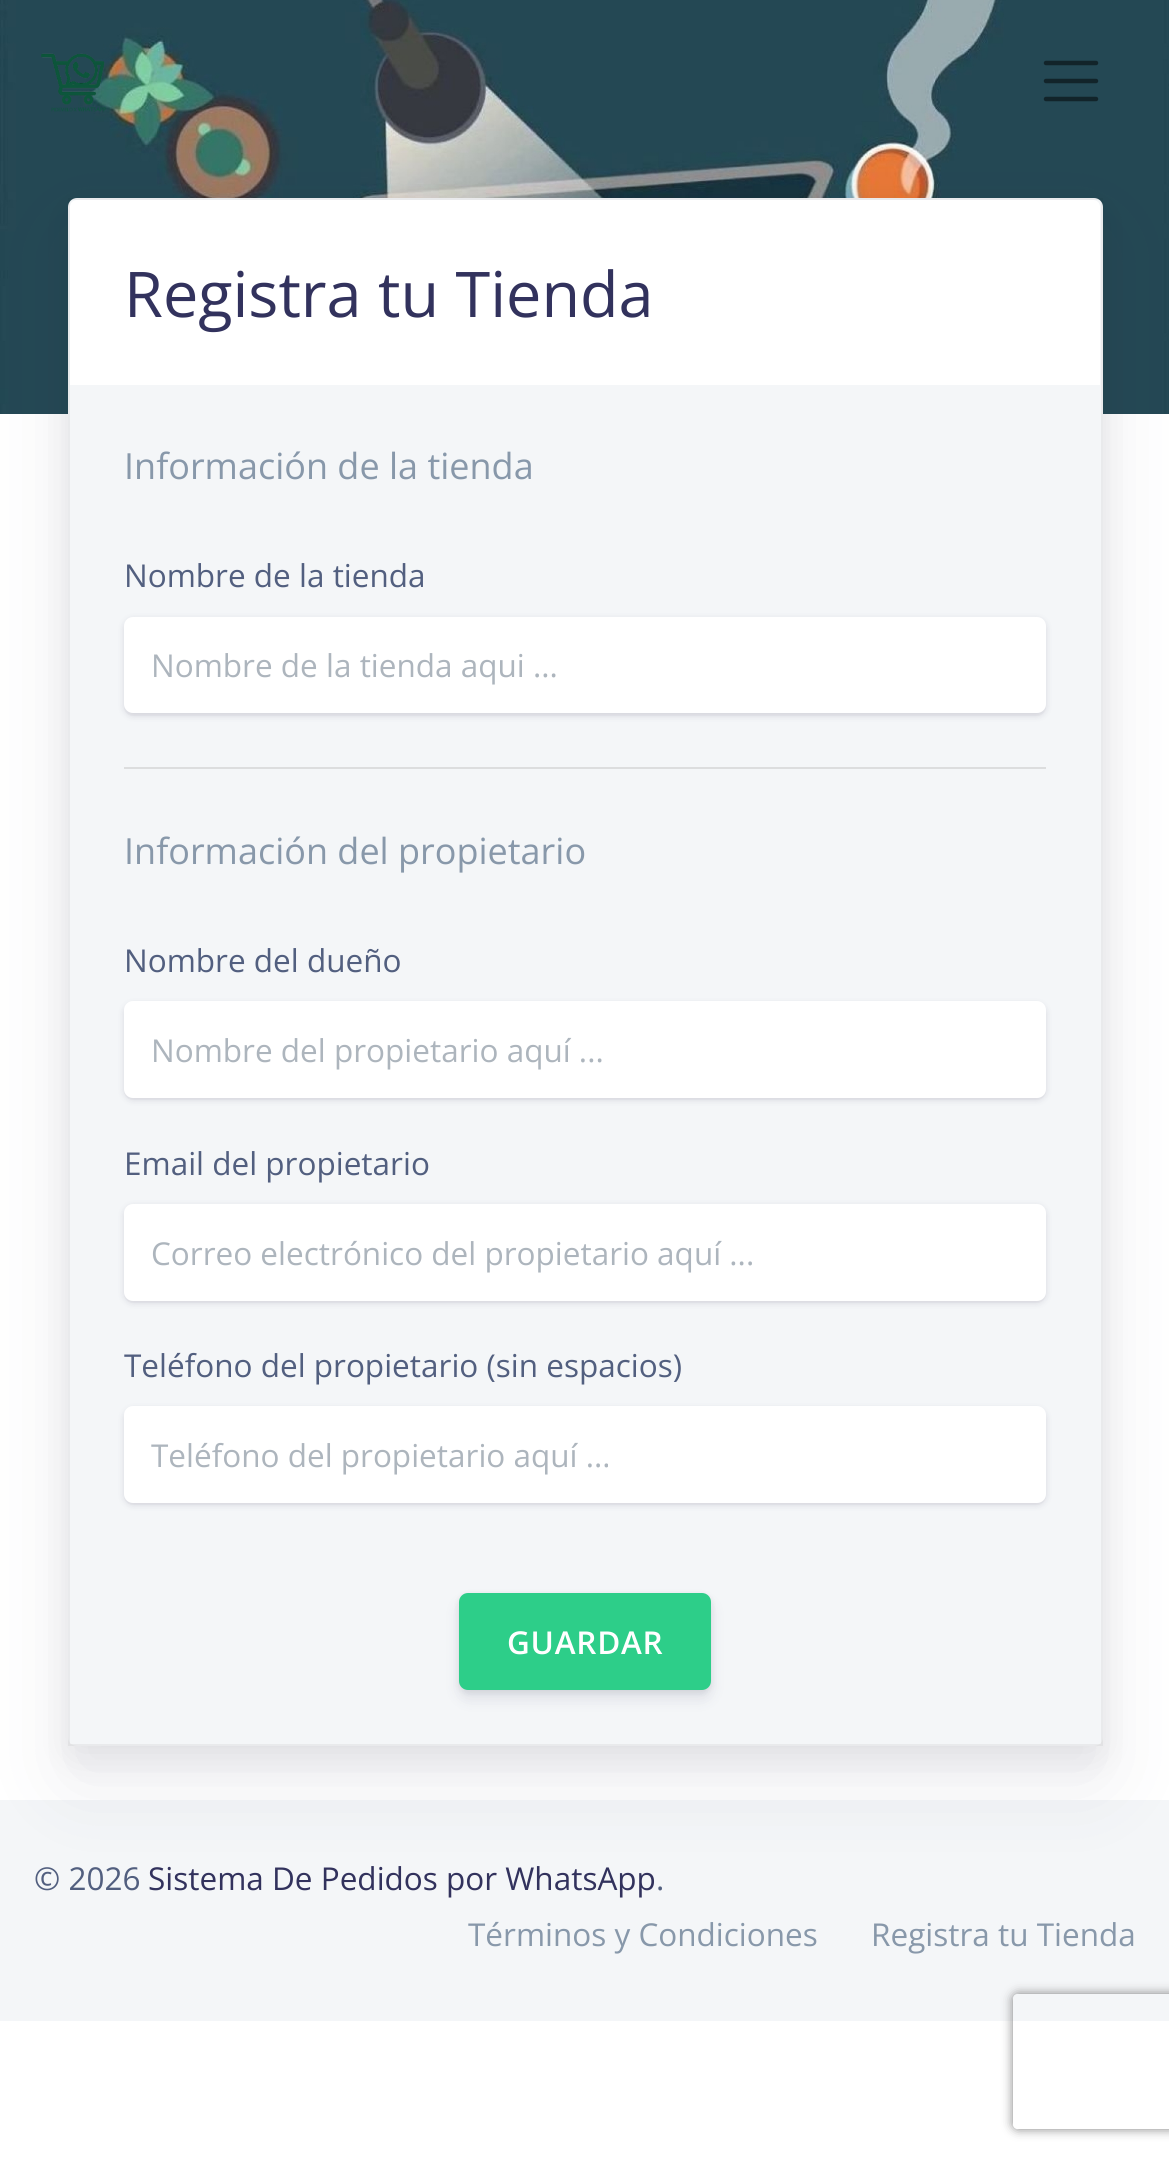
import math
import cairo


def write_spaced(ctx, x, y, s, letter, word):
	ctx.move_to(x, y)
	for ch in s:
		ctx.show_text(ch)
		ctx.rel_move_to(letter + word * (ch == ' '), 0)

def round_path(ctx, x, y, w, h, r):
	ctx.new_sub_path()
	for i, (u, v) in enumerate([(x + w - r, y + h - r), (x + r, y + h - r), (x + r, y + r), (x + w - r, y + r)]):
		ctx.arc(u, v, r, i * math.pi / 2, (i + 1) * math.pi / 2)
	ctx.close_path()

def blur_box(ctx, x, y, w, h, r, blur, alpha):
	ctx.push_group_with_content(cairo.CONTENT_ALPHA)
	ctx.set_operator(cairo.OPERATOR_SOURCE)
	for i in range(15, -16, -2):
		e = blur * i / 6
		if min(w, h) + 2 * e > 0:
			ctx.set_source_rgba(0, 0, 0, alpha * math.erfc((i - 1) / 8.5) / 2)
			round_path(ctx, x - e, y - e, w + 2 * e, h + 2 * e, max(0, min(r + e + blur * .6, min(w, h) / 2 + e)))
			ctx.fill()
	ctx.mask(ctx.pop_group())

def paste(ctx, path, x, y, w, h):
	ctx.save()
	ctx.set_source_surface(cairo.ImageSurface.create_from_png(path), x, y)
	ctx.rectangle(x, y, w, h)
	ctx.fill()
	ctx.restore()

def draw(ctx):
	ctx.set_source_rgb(1, 1, 1)
	ctx.paint()
	paste(ctx, 'media/2.png', 0, 0, 1169, 414)
	paste(ctx, 'media/1.png', 41, 53, 65, 59)
	ctx.new_path()
	ctx.move_to(1046, 63)
	ctx.line_to(1096, 63)
	ctx.move_to(1046, 81)
	ctx.line_to(1096, 81)
	ctx.move_to(1046, 99)
	ctx.line_to(1096, 99)
	ctx.set_source_rgb(0.071, 0.141, 0.165)
	ctx.set_line_width(4.5)
	ctx.set_line_cap(cairo.LINE_CAP_ROUND)
	ctx.stroke()
	ctx.set_source_rgb(0.957, 0.961, 0.969)
	ctx.rectangle(0, 1800, 1169, 221)
	ctx.fill()
	ctx.set_source_rgb(0, 0, 0)
	blur_box(ctx, 68, 209, 1035, 1548, 9, 17, 0.07)
	ctx.set_source_rgb(0.196, 0.196, 0.365)
	blur_box(ctx, 68, 232, 1035, 1548, 9, 39.5, 0.1)
	ctx.set_source_rgb(0.957, 0.961, 0.969)
	round_path(ctx, 68, 198, 1035, 1548, 9)
	ctx.fill()
	ctx.rectangle(69, 199, 1033, 1546)
	ctx.set_source_rgba(0, 0, 0, 0.05)
	ctx.set_line_width(2)
	ctx.set_line_cap(cairo.LINE_CAP_BUTT)
	ctx.stroke()
	ctx.set_source_rgb(1, 1, 1)
	ctx.new_path()
	ctx.move_to(77, 200)
	ctx.line_to(1093, 200)
	ctx.curve_to(1097, 200, 1100, 203, 1100, 207)
	ctx.line_to(1100, 385)
	ctx.line_to(70, 385)
	ctx.line_to(70, 207)
	ctx.curve_to(70, 203, 73, 200, 77, 200)
	ctx.close_path()
	ctx.fill()
	ctx.select_font_face('Open Sans')
	ctx.set_font_size(63)
	ctx.set_source_rgb(0.196, 0.196, 0.365)
	ctx.move_to(124, 317)
	ctx.show_text('Registra tu Tienda')
	ctx.set_font_size(36)
	ctx.set_source_rgb(0.533, 0.596, 0.667)
	ctx.move_to(124, 479)
	ctx.show_text('Información de la tienda')
	ctx.set_font_size(31.5)
	ctx.set_source_rgb(0.322, 0.373, 0.498)
	ctx.move_to(124, 587)
	ctx.show_text('Nombre de la tienda')
	ctx.set_source_rgb(0.937, 0.941, 0.949)
	ctx.new_path()
	ctx.move_to(124, 706)
	ctx.line_to(124, 707)
	ctx.curve_to(124, 712, 128, 716, 133, 716)
	ctx.line_to(1037, 716)
	ctx.curve_to(1042, 716, 1046, 712, 1046, 707)
	ctx.line_to(1046, 706)
	ctx.curve_to(1045, 710, 1041, 713, 1037, 713)
	ctx.line_to(133, 713)
	ctx.curve_to(129, 713, 125, 710, 124, 706)
	ctx.close_path()
	ctx.fill()
	ctx.set_source_rgb(0.196, 0.196, 0.365)
	blur_box(ctx, 124, 619, 922, 97, 9, 3.5, 0.15)
	ctx.set_source_rgb(1, 1, 1)
	round_path(ctx, 124, 617, 922, 96, 9)
	ctx.fill()
	ctx.set_source_rgb(0.678, 0.71, 0.741)
	ctx.move_to(151, 677)
	ctx.show_text('Nombre de la tienda aqui ...')
	ctx.set_source_rgb(0.863, 0.867, 0.871)
	ctx.rectangle(124, 767, 922, 2)
	ctx.fill()
	ctx.set_font_size(36)
	ctx.set_source_rgb(0.533, 0.596, 0.667)
	ctx.move_to(124, 864)
	ctx.show_text('Información del propietario')
	ctx.set_font_size(31.5)
	ctx.set_source_rgb(0.322, 0.373, 0.498)
	ctx.move_to(124, 972)
	ctx.show_text('Nombre del dueño')
	ctx.set_source_rgb(0.937, 0.941, 0.949)
	ctx.new_path()
	ctx.move_to(124, 1091)
	ctx.curve_to(124, 1096, 128, 1100, 133, 1100)
	ctx.line_to(1037, 1100)
	ctx.curve_to(1042, 1100, 1046, 1096, 1046, 1091)
	ctx.curve_to(1045, 1095, 1041, 1098, 1037, 1098)
	ctx.line_to(133, 1098)
	ctx.curve_to(129, 1098, 125, 1095, 124, 1091)
	ctx.close_path()
	ctx.fill()
	ctx.set_source_rgb(0.196, 0.196, 0.365)
	blur_box(ctx, 124, 1004, 922, 96, 9, 3.5, 0.15)
	ctx.set_source_rgb(1, 1, 1)
	round_path(ctx, 124, 1001, 922, 97, 9)
	ctx.fill()
	ctx.set_source_rgb(0.678, 0.71, 0.741)
	ctx.move_to(151, 1062)
	ctx.show_text('Nombre del propietario aquí ...')
	ctx.set_source_rgb(0.322, 0.373, 0.498)
	ctx.move_to(124, 1175)
	ctx.show_text('Email del propietario')
	ctx.set_source_rgb(0.937, 0.941, 0.949)
	ctx.new_path()
	ctx.move_to(124, 1294)
	ctx.curve_to(124, 1299, 128, 1303, 133, 1303)
	ctx.line_to(1037, 1303)
	ctx.curve_to(1042, 1303, 1046, 1299, 1046, 1294)
	ctx.curve_to(1045, 1298, 1041, 1300, 1037, 1300)
	ctx.line_to(133, 1300)
	ctx.curve_to(129, 1300, 125, 1298, 124, 1294)
	ctx.close_path()
	ctx.fill()
	ctx.set_source_rgb(0.196, 0.196, 0.365)
	blur_box(ctx, 124, 1206, 922, 97, 9, 3.5, 0.15)
	ctx.set_source_rgb(1, 1, 1)
	round_path(ctx, 124, 1204, 922, 97, 9)
	ctx.fill()
	ctx.set_source_rgb(0.678, 0.71, 0.741)
	ctx.move_to(151, 1265)
	ctx.show_text('Correo electrónico del propietario aquí ...')
	ctx.set_source_rgb(0.322, 0.373, 0.498)
	ctx.move_to(124, 1377)
	ctx.show_text('Teléfono del propietario (sin espacios)')
	ctx.set_source_rgb(0.937, 0.941, 0.949)
	ctx.new_path()
	ctx.move_to(124, 1496)
	ctx.curve_to(124, 1501, 128, 1505, 133, 1505)
	ctx.line_to(1037, 1505)
	ctx.curve_to(1042, 1505, 1046, 1501, 1046, 1496)
	ctx.curve_to(1045, 1500, 1041, 1503, 1037, 1503)
	ctx.line_to(133, 1503)
	ctx.curve_to(129, 1503, 125, 1500, 124, 1496)
	ctx.close_path()
	ctx.fill()
	ctx.set_source_rgb(0.196, 0.196, 0.365)
	blur_box(ctx, 124, 1409, 922, 96, 9, 3.5, 0.15)
	ctx.set_source_rgb(1, 1, 1)
	round_path(ctx, 124, 1406, 922, 97, 9)
	ctx.fill()
	ctx.set_source_rgb(0.678, 0.71, 0.741)
	ctx.move_to(151, 1467)
	ctx.show_text('Teléfono del propietario aquí ...')
	ctx.set_source_rgb(0, 0, 0)
	blur_box(ctx, 459, 1595, 252, 97, 9, 3.5, 0.08)
	ctx.set_source_rgb(0.196, 0.196, 0.365)
	blur_box(ctx, 459, 1602, 252, 97, 9, 7, 0.11)
	ctx.set_source_rgb(0.176, 0.808, 0.537)
	round_path(ctx, 460, 1594, 250, 95, 8)
	ctx.fill_preserve()
	ctx.stroke()
	ctx.select_font_face('Open Sans SemiBold')
	ctx.set_source_rgb(1, 1, 1)
	write_spaced(ctx, 507, 1654, 'GUARDAR', 0.75, 0)
	ctx.save()
	ctx.set_fill_rule(cairo.FILL_RULE_EVEN_ODD)
	ctx.new_path()
	ctx.move_to(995, 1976)
	ctx.line_to(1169, 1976)
	ctx.line_to(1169, 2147)
	ctx.line_to(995, 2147)
	ctx.close_path()
	ctx.move_to(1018, 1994)
	ctx.line_to(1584, 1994)
	ctx.curve_to(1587, 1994, 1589, 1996, 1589, 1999)
	ctx.line_to(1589, 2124)
	ctx.curve_to(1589, 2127, 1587, 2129, 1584, 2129)
	ctx.line_to(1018, 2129)
	ctx.curve_to(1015, 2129, 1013, 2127, 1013, 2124)
	ctx.line_to(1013, 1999)
	ctx.curve_to(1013, 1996, 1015, 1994, 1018, 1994)
	ctx.close_path()
	ctx.clip()
	ctx.set_source_rgb(0.502, 0.502, 0.502)
	blur_box(ctx, 1013, 1994, 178, 135, 5, 5.5, 1)
	ctx.restore()
	ctx.select_font_face('Open Sans')
	ctx.set_source_rgb(0.322, 0.373, 0.498)
	ctx.move_to(34, 1890)
	ctx.show_text('© 2026')
	ctx.set_source_rgb(0.196, 0.196, 0.365)
	ctx.move_to(148, 1890)
	ctx.show_text('Sistema De Pedidos por WhatsApp')
	ctx.set_source_rgb(0.322, 0.373, 0.498)
	ctx.move_to(656, 1890)
	ctx.show_text('.')
	ctx.set_source_rgb(0.533, 0.596, 0.667)
	ctx.move_to(468, 1946)
	ctx.show_text('Términos y Condiciones')
	ctx.move_to(871, 1946)
	ctx.show_text('Registra tu Tienda')


surface = cairo.ImageSurface(cairo.FORMAT_RGB24, 1169, 2158)
ctx = cairo.Context(surface)
options = cairo.FontOptions()
options.set_hint_metrics(cairo.HINT_METRICS_OFF)
options.set_hint_style(cairo.HINT_STYLE_NONE)
ctx.set_font_options(options)
ctx.set_miter_limit(4)
draw(ctx)
surface.write_to_png('image.png')
